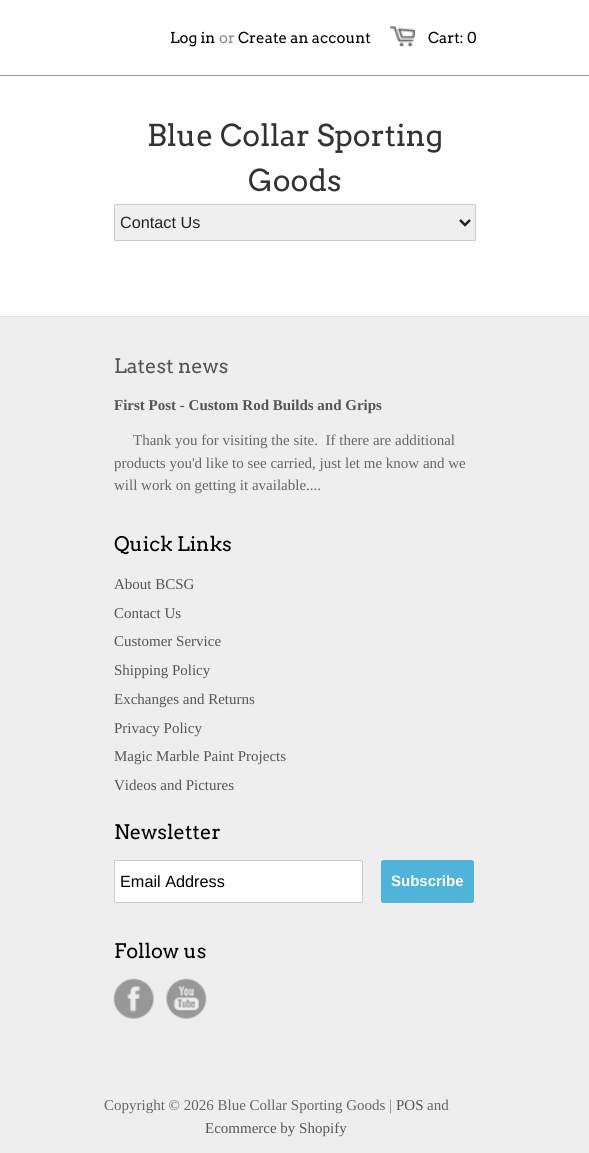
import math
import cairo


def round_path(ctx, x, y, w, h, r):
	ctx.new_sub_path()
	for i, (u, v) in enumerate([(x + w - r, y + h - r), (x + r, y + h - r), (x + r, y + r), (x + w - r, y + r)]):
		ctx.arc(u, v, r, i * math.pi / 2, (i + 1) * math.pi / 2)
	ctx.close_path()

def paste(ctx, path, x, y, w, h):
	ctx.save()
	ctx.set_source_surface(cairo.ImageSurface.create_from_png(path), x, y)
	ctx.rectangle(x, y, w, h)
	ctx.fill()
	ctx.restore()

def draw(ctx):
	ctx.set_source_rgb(1, 1, 1)
	ctx.paint()
	ctx.set_source_rgb(0.62, 0.612, 0.612)
	ctx.rectangle(0, 75, 589, 1)
	ctx.fill()
	ctx.select_font_face('Arvo')
	ctx.set_font_size(15)
	ctx.set_source_rgb(0, 0, 0)
	ctx.move_to(170, 43)
	ctx.show_text('Log in')
	ctx.set_source_rgb(0.533, 0.533, 0.533)
	ctx.move_to(219, 43)
	ctx.show_text('or')
	ctx.set_source_rgb(0, 0, 0)
	ctx.move_to(238, 43)
	ctx.show_text('Create an account')
	paste(ctx, 'media/1.png', 390, 26, 25, 21)
	ctx.move_to(428, 43)
	ctx.show_text('Cart: 0')
	ctx.set_font_size(30)
	ctx.set_source_rgb(0.2, 0.2, 0.2)
	ctx.move_to(147, 146)
	ctx.show_text('Blue Collar Sporting')
	ctx.move_to(248, 191)
	ctx.show_text('Goods')
	ctx.set_source_rgb(0.937, 0.937, 0.937)
	round_path(ctx, 114.5, 204.5, 361, 36, 0.5)
	ctx.fill_preserve()
	ctx.set_source_rgb(0.8, 0.8, 0.8)
	ctx.set_line_width(1)
	ctx.stroke()
	ctx.new_path()
	ctx.move_to(460, 220)
	ctx.line_to(465, 225)
	ctx.line_to(470, 220)
	ctx.set_source_rgb(0.133, 0.133, 0.133)
	ctx.set_line_width(2.5)
	ctx.stroke()
	ctx.select_font_face('Liberation Sans')
	ctx.set_font_size(16.25)
	ctx.move_to(120, 228)
	ctx.show_text('Contact Us')
	ctx.set_source_rgb(0.933, 0.933, 0.933)
	ctx.rectangle(0, 317, 589, 836)
	ctx.fill()
	ctx.set_source_rgb(0.898, 0.898, 0.898)
	ctx.rectangle(0, 316, 589, 1)
	ctx.fill()
	ctx.select_font_face('Arvo')
	ctx.set_font_size(20)
	ctx.set_source_rgb(0.333, 0.333, 0.333)
	ctx.move_to(114, 373)
	ctx.show_text('Latest news')
	ctx.select_font_face('Liberation Serif', cairo.FONT_SLANT_NORMAL, cairo.FONT_WEIGHT_BOLD)
	ctx.set_font_size(15)
	ctx.move_to(114, 410)
	ctx.show_text('First Post - Custom Rod Builds and Grips')
	ctx.select_font_face('Liberation Serif')
	ctx.set_source_rgb(0.4, 0.4, 0.4)
	for x, y, s in [
		(133, 445, 'Thank you for visiting the site.  If there are additional'),
		(114, 468, 'products you\'d like to see carried, just let me know and we'),
		(114, 490, 'will work on getting it available....'),
	]:
		ctx.move_to(x, y)
		ctx.show_text(s)
	ctx.select_font_face('Arvo')
	ctx.set_font_size(20)
	ctx.set_source_rgb(0, 0, 0)
	ctx.move_to(114, 551)
	ctx.show_text('Quick Links')
	ctx.select_font_face('Liberation Serif')
	ctx.set_font_size(15)
	ctx.set_source_rgb(0.333, 0.333, 0.333)
	for x, y, s in [
		(114, 589, 'About BCSG'),
		(114, 618, 'Contact Us'),
		(114, 646, 'Customer Service'),
		(114, 675, 'Shipping Policy'),
		(114, 704, 'Exchanges and Returns'),
		(114, 733, 'Privacy Policy'),
		(114, 761, 'Magic Marble Paint Projects'),
		(114, 790, 'Videos and Pictures'),
	]:
		ctx.move_to(x, y)
		ctx.show_text(s)
	ctx.select_font_face('Arvo')
	ctx.set_font_size(20)
	ctx.set_source_rgb(0, 0, 0)
	ctx.move_to(114, 839)
	ctx.show_text('Newsletter')
	ctx.set_source_rgb(1, 1, 1)
	round_path(ctx, 114.5, 860.5, 248, 42, 0.5)
	ctx.fill_preserve()
	ctx.set_source_rgb(0.8, 0.8, 0.8)
	ctx.set_line_width(1)
	ctx.stroke()
	ctx.select_font_face('Liberation Sans')
	ctx.set_font_size(16.25)
	ctx.set_source_rgb(0, 0, 0)
	ctx.move_to(120, 887)
	ctx.show_text('Email Address')
	ctx.set_source_rgb(0.314, 0.702, 0.855)
	round_path(ctx, 381, 860, 93, 43, 2.5)
	ctx.fill()
	ctx.select_font_face('Liberation Sans', cairo.FONT_SLANT_NORMAL, cairo.FONT_WEIGHT_BOLD)
	ctx.set_font_size(15)
	ctx.set_source_rgb(1, 1, 1)
	ctx.move_to(391, 886)
	ctx.show_text('Subscribe')
	ctx.select_font_face('Arvo')
	ctx.set_font_size(20)
	ctx.set_source_rgb(0, 0, 0)
	ctx.move_to(114, 958)
	ctx.show_text('Follow us')
	paste(ctx, 'media/2.png', 113, 978, 41, 41)
	paste(ctx, 'media/3.png', 166, 978, 41, 41)
	ctx.select_font_face('Liberation Serif')
	ctx.set_font_size(15)
	ctx.set_source_rgb(0.4, 0.4, 0.4)
	ctx.move_to(104, 1110)
	ctx.show_text('Copyright © 2026 Blue Collar Sporting Goods |')
	ctx.set_source_rgb(0.333, 0.333, 0.333)
	ctx.move_to(396, 1110)
	ctx.show_text('POS')
	ctx.set_source_rgb(0.4, 0.4, 0.4)
	ctx.move_to(427, 1110)
	ctx.show_text('and')
	ctx.set_source_rgb(0.333, 0.333, 0.333)
	ctx.move_to(205, 1133)
	ctx.show_text('Ecommerce by Shopify')


surface = cairo.ImageSurface(cairo.FORMAT_RGB24, 589, 1153)
ctx = cairo.Context(surface)
options = cairo.FontOptions()
options.set_hint_metrics(cairo.HINT_METRICS_OFF)
options.set_hint_style(cairo.HINT_STYLE_NONE)
ctx.set_font_options(options)
ctx.set_miter_limit(4)
draw(ctx)
surface.write_to_png('image.png')
